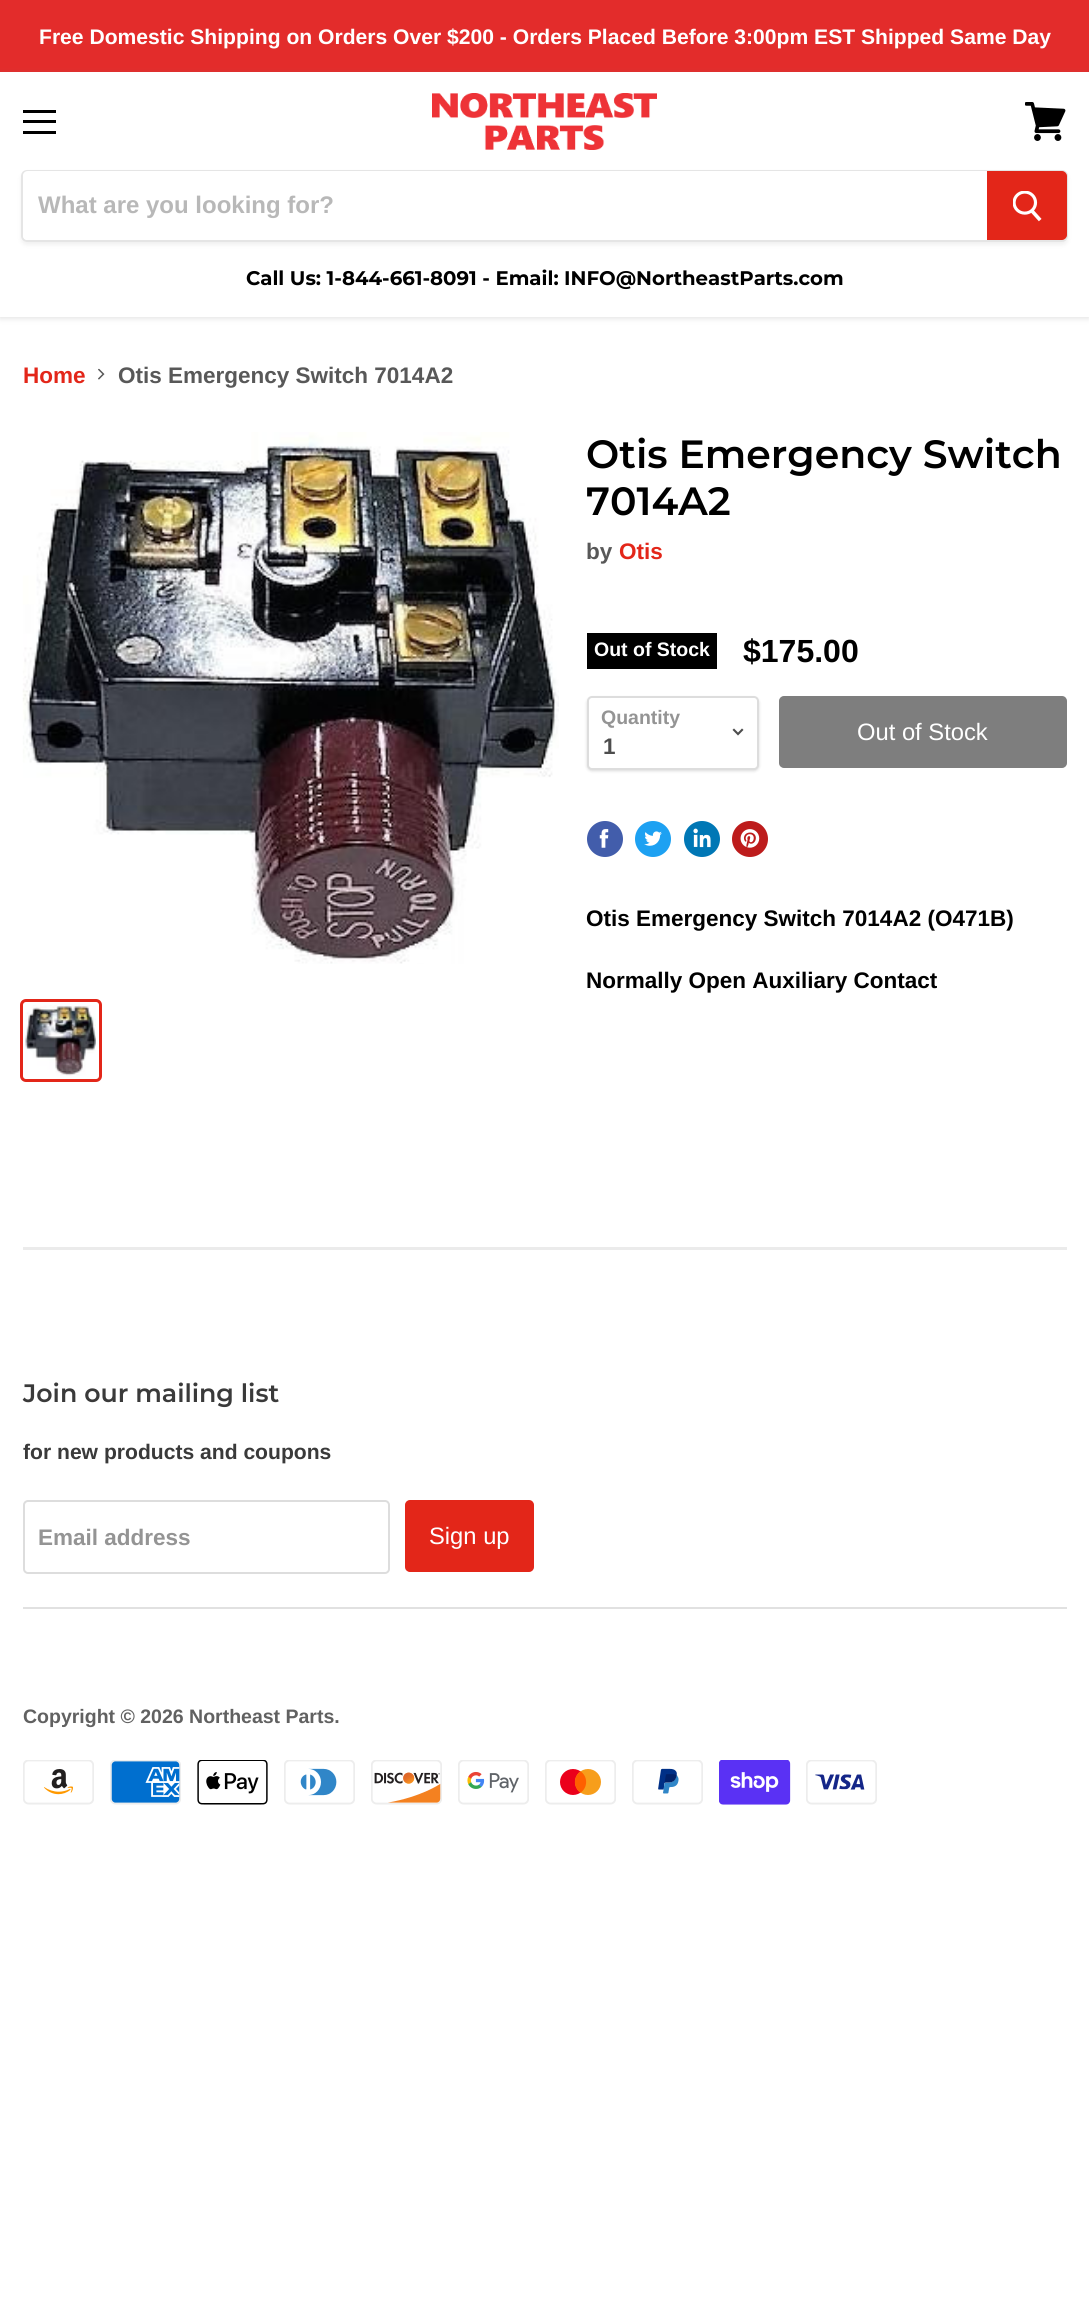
import math
import cairo


def round_path(ctx, x, y, w, h, r):
	ctx.new_sub_path()
	for i, (u, v) in enumerate([(x + w - r, y + h - r), (x + r, y + h - r), (x + r, y + r), (x + w - r, y + r)]):
		ctx.arc(u, v, r, i * math.pi / 2, (i + 1) * math.pi / 2)
	ctx.close_path()

def blur_box(ctx, x, y, w, h, r, blur, alpha):
	ctx.push_group_with_content(cairo.CONTENT_ALPHA)
	ctx.set_operator(cairo.OPERATOR_SOURCE)
	for i in range(15, -16, -2):
		e = blur * i / 6
		if min(w, h) + 2 * e > 0:
			ctx.set_source_rgba(0, 0, 0, alpha * math.erfc((i - 1) / 8.5) / 2)
			round_path(ctx, x - e, y - e, w + 2 * e, h + 2 * e, max(0, min(r + e + blur * .6, min(w, h) / 2 + e)))
			ctx.fill()
	ctx.mask(ctx.pop_group())

def paste(ctx, path, x, y, w, h):
	ctx.save()
	ctx.set_source_surface(cairo.ImageSurface.create_from_png(path), x, y)
	ctx.rectangle(x, y, w, h)
	ctx.fill()
	ctx.restore()

def draw(ctx):
	ctx.set_source_rgb(1, 1, 1)
	ctx.paint()
	ctx.set_source_rgb(0.89, 0.173, 0.169)
	ctx.rectangle(0, 0, 1089, 72)
	ctx.fill()
	ctx.select_font_face('Arimo', cairo.FONT_SLANT_NORMAL, cairo.FONT_WEIGHT_BOLD)
	ctx.set_font_size(21.1)
	ctx.set_source_rgb(1, 1, 1)
	ctx.move_to(39, 44)
	ctx.show_text('Free Domestic Shipping on Orders Over $200 - Orders Placed Before 3:00pm EST Shipped Same Day')
	ctx.set_source_rgb(0.498, 0.498, 0.498)
	blur_box(ctx, 0, 74, 1089, 244, 0, 3, 0.25)
	ctx.set_source_rgb(1, 1, 1)
	ctx.rectangle(0, 72, 1089, 245)
	ctx.fill()
	ctx.set_source_rgb(0, 0, 0)
	ctx.rectangle(23, 110, 33, 3)
	ctx.rectangle(23, 120, 33, 3)
	ctx.rectangle(23, 131, 33, 3)
	ctx.fill()
	paste(ctx, 'media/1.png', 1025, 102, 41, 39)
	paste(ctx, 'media/2.png', 432, 93, 225, 57)
	ctx.save()
	ctx.set_fill_rule(cairo.FILL_RULE_EVEN_ODD)
	ctx.new_path()
	ctx.move_to(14, 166)
	ctx.line_to(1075, 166)
	ctx.line_to(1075, 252)
	ctx.line_to(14, 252)
	ctx.close_path()
	ctx.move_to(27, 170)
	ctx.line_to(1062, 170)
	ctx.curve_to(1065.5, 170, 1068, 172.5, 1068, 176)
	ctx.line_to(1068, 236)
	ctx.curve_to(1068, 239.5, 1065.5, 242, 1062, 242)
	ctx.line_to(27, 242)
	ctx.curve_to(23.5, 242, 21, 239.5, 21, 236)
	ctx.line_to(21, 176)
	ctx.curve_to(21, 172.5, 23.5, 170, 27, 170)
	ctx.close_path()
	ctx.clip()
	ctx.set_source_rgb(0.498, 0.498, 0.498)
	blur_box(ctx, 21, 173, 1047, 72, 6, 2, 0.11)
	ctx.restore()
	round_path(ctx, 22, 171, 1045, 70, 5)
	ctx.set_source_rgba(0.498, 0.498, 0.498, 0.2)
	ctx.stroke()
	ctx.set_source_rgb(1, 1, 1)
	ctx.new_path()
	ctx.move_to(28, 171)
	ctx.line_to(987, 171)
	ctx.line_to(987, 240)
	ctx.line_to(28, 240)
	ctx.curve_to(25, 240, 23, 238, 23, 235)
	ctx.line_to(23, 176)
	ctx.curve_to(23, 173, 25, 171, 28, 171)
	ctx.close_path()
	ctx.fill()
	ctx.set_font_size(24)
	ctx.set_source_rgb(0.722, 0.722, 0.722)
	ctx.move_to(38, 213)
	ctx.show_text('What are you looking for?')
	ctx.set_source_rgb(0.89, 0.149, 0.098)
	ctx.new_path()
	ctx.move_to(988, 172)
	ctx.line_to(1062, 172)
	ctx.curve_to(1064, 172, 1066, 174, 1066, 176)
	ctx.line_to(1066, 235)
	ctx.curve_to(1066, 237, 1064, 239, 1062, 239)
	ctx.line_to(988, 239)
	ctx.close_path()
	ctx.fill_preserve()
	ctx.stroke()
	paste(ctx, 'media/3.png', 1013, 191, 29, 31)
	ctx.select_font_face('Montserrat', cairo.FONT_SLANT_NORMAL, cairo.FONT_WEIGHT_BOLD)
	ctx.set_font_size(19.7)
	ctx.set_source_rgb(0, 0, 0)
	ctx.move_to(246, 285)
	ctx.show_text('Call Us: 1-844-661-8091 - Email: INFO@NortheastParts.com')
	ctx.select_font_face('Arimo', cairo.FONT_SLANT_NORMAL, cairo.FONT_WEIGHT_BOLD)
	ctx.set_font_size(22.5)
	ctx.set_source_rgb(0.89, 0.149, 0.098)
	ctx.move_to(23, 383)
	ctx.show_text('Home')
	paste(ctx, 'media/4.png', 98, 368, 7, 12)
	ctx.set_source_rgb(0.345, 0.345, 0.345)
	ctx.move_to(118, 383)
	ctx.show_text('Otis Emergency Switch 7014A2')
	paste(ctx, 'media/5.png', 22, 432, 537, 532)
	round_path(ctx, 21.5, 1000.5, 79, 80, 4.5)
	ctx.set_source_rgb(0.89, 0.149, 0.098)
	ctx.set_line_width(3)
	ctx.stroke()
	paste(ctx, 'media/6.png', 25, 1005, 71, 71)
	ctx.select_font_face('Montserrat SemiBold')
	ctx.set_font_size(39.4)
	ctx.set_source_rgb(0, 0, 0)
	ctx.move_to(586, 468)
	ctx.show_text('Otis Emergency Switch')
	ctx.move_to(586, 515)
	ctx.show_text('7014A2')
	ctx.select_font_face('Arimo', cairo.FONT_SLANT_NORMAL, cairo.FONT_WEIGHT_BOLD)
	ctx.set_font_size(22.5)
	ctx.set_source_rgb(0.345, 0.345, 0.345)
	ctx.move_to(586, 559)
	ctx.show_text('by')
	ctx.set_source_rgb(0.89, 0.149, 0.098)
	ctx.move_to(619, 559)
	ctx.show_text('Otis')
	ctx.set_source_rgb(0, 0, 0)
	ctx.rectangle(587, 633, 130, 36)
	ctx.fill()
	ctx.set_font_size(19.5)
	ctx.set_source_rgb(1, 1, 1)
	ctx.move_to(594, 656)
	ctx.show_text('Out of Stock')
	ctx.set_font_size(32)
	ctx.set_source_rgb(0, 0, 0)
	ctx.move_to(743, 662)
	ctx.show_text('$175.00')
	ctx.set_source_rgb(0, 0, 0)
	blur_box(ctx, 587, 698, 172, 73, 5, 1.5, 0.15)
	ctx.set_source_rgb(1, 1, 1)
	round_path(ctx, 588, 697, 170, 72, 4)
	ctx.fill_preserve()
	ctx.set_source_rgb(0.867, 0.867, 0.867)
	ctx.set_line_width(2)
	ctx.stroke()
	ctx.set_font_size(19.5)
	ctx.set_source_rgb(0.58, 0.58, 0.58)
	ctx.move_to(601, 724)
	ctx.show_text('Quantity')
	paste(ctx, 'media/7.png', 732, 728, 12, 8)
	ctx.set_font_size(22.5)
	ctx.set_source_rgb(0.302, 0.302, 0.302)
	ctx.move_to(603, 754)
	ctx.show_text('1')
	ctx.set_source_rgb(0.494, 0.494, 0.494)
	round_path(ctx, 780, 697, 286, 70, 4)
	ctx.fill_preserve()
	ctx.stroke()
	ctx.select_font_face('Liberation Sans')
	ctx.set_font_size(23.75)
	ctx.set_source_rgb(1, 1, 1)
	ctx.move_to(857, 740)
	ctx.show_text('Out of Stock')
	ctx.set_source_rgb(0.259, 0.365, 0.671)
	ctx.new_path()
	ctx.arc(605, 839, 18, 0, 2 * math.pi)
	ctx.fill()
	paste(ctx, 'media/8.png', 599, 829, 10, 19)
	ctx.set_source_rgb(0.114, 0.631, 0.949)
	ctx.arc(653, 839, 18, 0, 2 * math.pi)
	ctx.fill()
	paste(ctx, 'media/9.png', 644, 831, 18, 15)
	ctx.set_source_rgb(0, 0.467, 0.71)
	ctx.arc(702, 839, 18, 0, 2 * math.pi)
	ctx.fill()
	paste(ctx, 'media/10.png', 693, 828, 18, 20)
	ctx.set_source_rgb(0.741, 0.11, 0.11)
	ctx.arc(750, 839, 18, 0, 2 * math.pi)
	ctx.fill()
	paste(ctx, 'media/11.png', 740, 829, 20, 19)
	ctx.select_font_face('Arimo', cairo.FONT_SLANT_NORMAL, cairo.FONT_WEIGHT_BOLD)
	ctx.set_font_size(22.5)
	ctx.set_source_rgb(0, 0, 0)
	ctx.move_to(586, 926)
	ctx.show_text('Otis Emergency Switch 7014A2 (O471B)')
	ctx.move_to(586, 988)
	ctx.show_text('Normally Open Auxiliary Contact')
	ctx.set_source_rgba(0.498, 0.498, 0.498, 0.16)
	ctx.rectangle(23, 1247, 1044, 3)
	ctx.fill()
	ctx.set_source_rgb(0.882, 0.882, 0.882)
	ctx.rectangle(23, 1607, 1044, 2)
	ctx.fill()
	ctx.select_font_face('Montserrat SemiBold')
	ctx.set_font_size(25.25)
	ctx.set_source_rgb(0.227, 0.227, 0.227)
	ctx.move_to(23, 1402)
	ctx.show_text('Join our mailing list')
	ctx.select_font_face('Arimo', cairo.FONT_SLANT_NORMAL, cairo.FONT_WEIGHT_BOLD)
	ctx.set_font_size(21.1)
	ctx.move_to(23, 1459)
	ctx.show_text('for new products and coupons')
	round_path(ctx, 24, 1501, 365, 72, 4)
	ctx.set_source_rgb(0.867, 0.867, 0.867)
	ctx.stroke()
	ctx.set_font_size(22.5)
	ctx.set_source_rgb(0.58, 0.58, 0.58)
	ctx.move_to(38, 1545)
	ctx.show_text('Email address')
	ctx.set_source_rgb(0.89, 0.149, 0.098)
	round_path(ctx, 406, 1501, 127, 70, 4)
	ctx.fill_preserve()
	ctx.stroke()
	ctx.select_font_face('Liberation Sans')
	ctx.set_font_size(23.75)
	ctx.set_source_rgb(1, 1, 1)
	ctx.move_to(429, 1544)
	ctx.show_text('Sign up')
	ctx.select_font_face('Arimo', cairo.FONT_SLANT_NORMAL, cairo.FONT_WEIGHT_BOLD)
	ctx.set_font_size(19.5)
	ctx.set_source_rgb(0.38, 0.38, 0.38)
	ctx.move_to(23, 1723)
	ctx.show_text('Copyright © 2026 Northeast Parts.')
	paste(ctx, 'media/12.png', 23, 1760, 71, 45)
	paste(ctx, 'media/13.png', 110, 1760, 71, 45)
	paste(ctx, 'media/14.png', 197, 1760, 71, 45)
	paste(ctx, 'media/15.png', 284, 1760, 71, 45)
	paste(ctx, 'media/16.png', 371, 1760, 71, 45)
	paste(ctx, 'media/17.png', 458, 1760, 71, 45)
	paste(ctx, 'media/18.png', 545, 1760, 71, 45)
	paste(ctx, 'media/19.png', 632, 1760, 71, 45)
	paste(ctx, 'media/20.png', 719, 1760, 72, 45)
	paste(ctx, 'media/21.png', 806, 1760, 71, 45)


surface = cairo.ImageSurface(cairo.FORMAT_RGB24, 1089, 2298)
ctx = cairo.Context(surface)
options = cairo.FontOptions()
options.set_hint_metrics(cairo.HINT_METRICS_OFF)
options.set_hint_style(cairo.HINT_STYLE_NONE)
ctx.set_font_options(options)
ctx.set_miter_limit(4)
draw(ctx)
surface.write_to_png('image.png')
